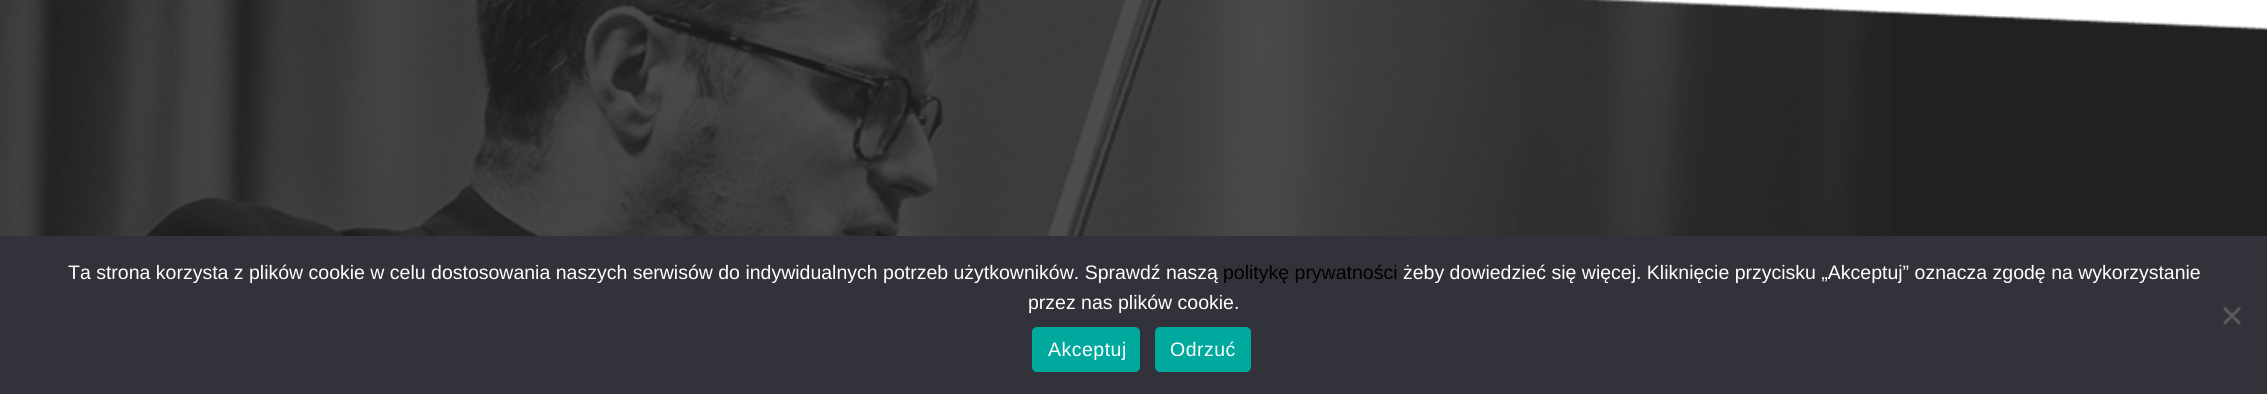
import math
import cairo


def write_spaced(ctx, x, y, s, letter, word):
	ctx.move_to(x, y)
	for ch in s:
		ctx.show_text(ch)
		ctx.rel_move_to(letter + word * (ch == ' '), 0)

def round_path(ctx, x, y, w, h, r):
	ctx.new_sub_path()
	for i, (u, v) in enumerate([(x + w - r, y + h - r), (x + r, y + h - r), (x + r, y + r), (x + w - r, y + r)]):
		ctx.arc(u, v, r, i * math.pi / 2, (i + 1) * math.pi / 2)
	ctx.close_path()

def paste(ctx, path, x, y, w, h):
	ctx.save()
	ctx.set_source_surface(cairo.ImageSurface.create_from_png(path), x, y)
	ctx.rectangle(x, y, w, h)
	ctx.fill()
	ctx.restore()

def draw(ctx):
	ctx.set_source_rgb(1, 1, 1)
	ctx.paint()
	paste(ctx, 'media/1.png', 0, 0, 2267, 236)
	ctx.set_source_rgb(0.196, 0.196, 0.227)
	ctx.rectangle(0, 236, 2267, 158)
	ctx.fill()
	ctx.select_font_face('Liberation Sans')
	ctx.set_font_size(19.5)
	ctx.set_source_rgb(1, 1, 1)
	ctx.move_to(68, 279)
	ctx.show_text('Ta strona korzysta z plików cookie w celu dostosowania naszych serwisów do indywidualnych potrzeb użytkowników. Sprawdź naszą')
	ctx.set_source_rgb(0, 0, 0)
	ctx.move_to(1223, 279)
	ctx.show_text('politykę prywatności')
	ctx.set_source_rgb(1, 1, 1)
	ctx.move_to(1403, 279)
	ctx.show_text('żeby dowiedzieć się więcej. Kliknięcie przycisku „Akceptuj” oznacza zgodę na wykorzystanie')
	ctx.move_to(1028, 309)
	ctx.show_text('przez nas plików cookie.')
	ctx.set_source_rgb(0.349, 0.349, 0.365)
	ctx.new_path()
	ctx.move_to(2239, 306.5)
	ctx.line_to(2241, 309)
	ctx.line_to(2225, 325)
	ctx.line_to(2223, 322.5)
	ctx.close_path()
	ctx.fill()
	ctx.new_path()
	ctx.move_to(2223, 309)
	ctx.line_to(2225, 306.5)
	ctx.line_to(2241, 322.5)
	ctx.line_to(2239, 325)
	ctx.close_path()
	ctx.fill()
	ctx.set_source_rgb(0, 0.663, 0.616)
	round_path(ctx, 1032, 327, 108, 45, 5)
	ctx.fill()
	ctx.set_source_rgb(1, 1, 1)
	write_spaced(ctx, 1048, 356, 'Akceptuj', 0.5, 0)
	ctx.set_source_rgb(0, 0.663, 0.616)
	round_path(ctx, 1155, 327, 96, 45, 5)
	ctx.fill()
	ctx.set_source_rgb(1, 1, 1)
	write_spaced(ctx, 1170, 356, 'Odrzuć', 0.5, 0)


surface = cairo.ImageSurface(cairo.FORMAT_RGB24, 2267, 394)
ctx = cairo.Context(surface)
options = cairo.FontOptions()
options.set_hint_metrics(cairo.HINT_METRICS_OFF)
options.set_hint_style(cairo.HINT_STYLE_NONE)
ctx.set_font_options(options)
ctx.set_miter_limit(4)
draw(ctx)
surface.write_to_png('image.png')
